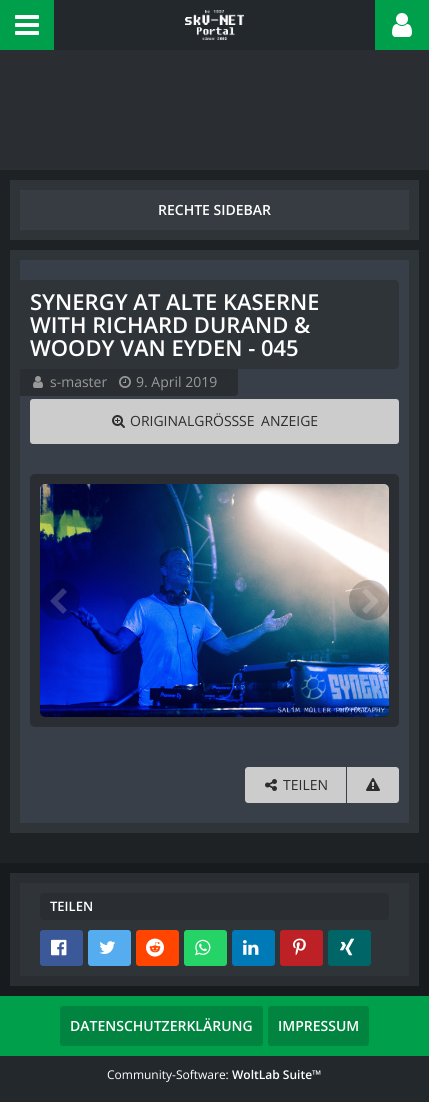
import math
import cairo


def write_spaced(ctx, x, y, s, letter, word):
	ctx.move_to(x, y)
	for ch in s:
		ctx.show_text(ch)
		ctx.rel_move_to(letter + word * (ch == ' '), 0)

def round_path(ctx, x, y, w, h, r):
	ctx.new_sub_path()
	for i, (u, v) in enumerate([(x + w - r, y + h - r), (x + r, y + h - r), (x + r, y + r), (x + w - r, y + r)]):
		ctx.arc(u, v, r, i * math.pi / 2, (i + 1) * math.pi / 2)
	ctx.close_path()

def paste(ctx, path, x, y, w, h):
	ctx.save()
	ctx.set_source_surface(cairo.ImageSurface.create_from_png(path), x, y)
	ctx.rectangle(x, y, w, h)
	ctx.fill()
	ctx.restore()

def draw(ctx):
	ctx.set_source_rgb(0.122, 0.133, 0.145)
	ctx.paint()
	ctx.set_source_rgb(0.165, 0.18, 0.196)
	ctx.rectangle(0, 50, 429, 120)
	ctx.fill()
	ctx.set_source_rgb(0.137, 0.157, 0.176)
	ctx.rectangle(54, 0, 321, 50)
	ctx.fill()
	paste(ctx, 'media/1.png', 185, 10, 59, 30)
	ctx.set_source_rgb(0, 0.624, 0.294)
	ctx.rectangle(375, 0, 54, 50)
	ctx.fill()
	paste(ctx, 'media/2.png', 392, 13, 20, 24)
	ctx.rectangle(0, 0, 54, 50)
	ctx.fill()
	paste(ctx, 'media/3.png', 15, 15, 24, 20)
	ctx.set_source_rgb(0.22, 0.247, 0.282)
	ctx.rectangle(15, 185, 399, 50)
	ctx.fill_preserve()
	ctx.set_source_rgb(0.184, 0.204, 0.224)
	ctx.set_line_width(10)
	ctx.stroke()
	ctx.set_source_rgb(0.212, 0.235, 0.259)
	round_path(ctx, 20, 190, 389, 40, 5)
	ctx.fill()
	ctx.select_font_face('Open Sans SemiBold')
	ctx.set_font_size(14)
	ctx.set_source_rgb(1, 1, 1)
	ctx.move_to(158, 215)
	ctx.show_text('RECHTE SIDEBAR')
	ctx.set_source_rgb(0.22, 0.247, 0.282)
	ctx.rectangle(15, 255, 399, 573)
	ctx.fill_preserve()
	ctx.set_source_rgb(0.184, 0.204, 0.224)
	ctx.stroke()
	ctx.new_path()
	ctx.move_to(10, 280)
	ctx.line_to(394, 280)
	ctx.curve_to(397, 280, 399, 282, 399, 285)
	ctx.line_to(399, 364)
	ctx.curve_to(399, 367, 397, 369, 394, 369)
	ctx.line_to(10, 369)
	ctx.close_path()
	ctx.fill()
	ctx.set_font_size(22)
	ctx.set_source_rgb(1, 1, 1)
	for x, y, s in [
		(30, 310, 'SYNERGY AT ALTE KASERNE'),
		(30, 333, 'WITH RICHARD DURAND &'),
		(30, 356, 'WOODY VAN EYDEN - 045'),
	]:
		ctx.move_to(x, y)
		ctx.show_text(s)
	ctx.set_source_rgb(0.165, 0.18, 0.196)
	ctx.new_path()
	ctx.move_to(20, 369)
	ctx.line_to(238, 369)
	ctx.line_to(238, 393)
	ctx.curve_to(238, 394.5, 236.5, 396, 235, 396)
	ctx.line_to(20, 396)
	ctx.close_path()
	ctx.fill()
	paste(ctx, 'media/4.png', 33, 376, 10, 12)
	ctx.select_font_face('Open Sans')
	ctx.set_font_size(14)
	ctx.set_source_rgb(0.6, 0.6, 0.6)
	ctx.move_to(50, 387)
	ctx.show_text('s-master')
	paste(ctx, 'media/5.png', 119, 376, 12, 12)
	ctx.move_to(136, 387)
	ctx.show_text('9. April 2019')
	ctx.set_source_rgb(0.8, 0.8, 0.8)
	round_path(ctx, 30, 399, 369, 45, 3)
	ctx.fill()
	paste(ctx, 'media/6.png', 112, 415, 13, 13)
	ctx.set_source_rgb(0.176, 0.176, 0.176)
	ctx.move_to(130, 426)
	ctx.show_text('ORIGINALGRÖSS')
	write_spaced(ctx, 239, 426, 'SE ANZEIGE', 0, 3)
	ctx.set_source_rgb(0.165, 0.18, 0.196)
	round_path(ctx, 30, 474, 369, 253, 5)
	ctx.fill()
	paste(ctx, 'media/7.png', 40, 484, 349, 233)
	ctx.set_source_rgba(0, 0, 0, 0.2)
	ctx.arc(60, 600, 20, 0, 2 * math.pi)
	ctx.fill()
	paste(ctx, 'media/8.png', 50, 588, 17, 26)
	ctx.arc(369, 600, 20, 0, 2 * math.pi)
	ctx.fill()
	paste(ctx, 'media/9.png', 362, 588, 17, 26)
	ctx.set_source_rgb(0.8, 0.8, 0.8)
	ctx.new_path()
	ctx.move_to(248, 767)
	ctx.line_to(346, 767)
	ctx.line_to(346, 803)
	ctx.line_to(248, 803)
	ctx.curve_to(246.5, 803, 245, 801.5, 245, 800)
	ctx.line_to(245, 770)
	ctx.curve_to(245, 768.5, 246.5, 767, 248, 767)
	ctx.close_path()
	ctx.fill()
	paste(ctx, 'media/10.png', 265, 779, 12, 12)
	ctx.set_source_rgb(0.176, 0.176, 0.176)
	ctx.move_to(283, 790)
	ctx.show_text('TEILEN')
	ctx.set_source_rgb(0.8, 0.8, 0.8)
	ctx.new_path()
	ctx.move_to(347, 767)
	ctx.line_to(396, 767)
	ctx.curve_to(397.5, 767, 399, 768.5, 399, 770)
	ctx.line_to(399, 800)
	ctx.curve_to(399, 801.5, 397.5, 803, 396, 803)
	ctx.line_to(347, 803)
	ctx.close_path()
	ctx.fill()
	paste(ctx, 'media/11.png', 366, 778, 14, 13)
	ctx.set_source_rgb(0.094, 0.106, 0.118)
	ctx.rectangle(0, 863, 429, 133)
	ctx.fill()
	ctx.set_source_rgb(0.184, 0.204, 0.224)
	ctx.rectangle(15, 878, 399, 103)
	ctx.fill_preserve()
	ctx.set_source_rgb(0.165, 0.18, 0.196)
	ctx.stroke()
	round_path(ctx, 40, 893, 349, 27, 3)
	ctx.fill()
	ctx.select_font_face('Open Sans SemiBold')
	ctx.set_font_size(13)
	ctx.set_source_rgb(1, 1, 1)
	ctx.move_to(50, 911)
	ctx.show_text('TEILEN')
	ctx.set_source_rgb(0.231, 0.349, 0.6)
	round_path(ctx, 40, 930, 43, 36, 3)
	ctx.fill()
	paste(ctx, 'media/12.png', 51, 939, 16, 17)
	ctx.set_source_rgb(0.333, 0.675, 0.933)
	round_path(ctx, 88, 930, 43, 36, 3)
	ctx.fill()
	paste(ctx, 'media/13.png', 99, 941, 17, 13)
	ctx.set_source_rgb(1, 0.271, 0)
	round_path(ctx, 136, 930, 43, 36, 3)
	ctx.fill()
	paste(ctx, 'media/14.png', 146, 938, 18, 19)
	ctx.set_source_rgb(0.145, 0.827, 0.4)
	round_path(ctx, 184, 930, 43, 36, 3)
	ctx.fill()
	paste(ctx, 'media/15.png', 195, 939, 16, 17)
	ctx.set_source_rgb(0, 0.478, 0.714)
	round_path(ctx, 232, 930, 43, 36, 3)
	ctx.fill()
	paste(ctx, 'media/16.png', 243, 940, 16, 15)
	ctx.set_source_rgb(0.741, 0.129, 0.145)
	round_path(ctx, 280, 930, 43, 36, 3)
	ctx.fill()
	paste(ctx, 'media/17.png', 293, 938, 13, 18)
	ctx.set_source_rgb(0, 0.396, 0.404)
	round_path(ctx, 328, 930, 43, 36, 3)
	ctx.fill()
	paste(ctx, 'media/18.png', 340, 938, 15, 18)
	ctx.set_source_rgb(0, 0.624, 0.294)
	ctx.rectangle(0, 996, 429, 60)
	ctx.fill()
	ctx.set_source_rgb(0, 0.518, 0.247)
	round_path(ctx, 60, 1006, 203, 40, 3)
	ctx.fill()
	ctx.set_font_size(14)
	ctx.set_source_rgb(1, 1, 1)
	ctx.move_to(70, 1031)
	ctx.show_text('DATENSCHUTZERKLÄRUNG')
	ctx.set_source_rgb(0, 0.518, 0.247)
	round_path(ctx, 268, 1006, 101, 40, 3)
	ctx.fill()
	ctx.set_source_rgb(1, 1, 1)
	ctx.move_to(278, 1031)
	ctx.show_text('IMPRESSUM')
	ctx.set_source_rgb(0.137, 0.157, 0.176)
	ctx.rectangle(0, 1056, 429, 46)
	ctx.fill()
	ctx.select_font_face('Open Sans')
	ctx.set_font_size(12)
	ctx.set_source_rgb(1, 1, 1)
	ctx.move_to(107, 1079)
	ctx.show_text('Community-Software:')
	ctx.select_font_face('Open Sans SemiBold')
	ctx.move_to(232, 1079)
	ctx.show_text('WoltLab Suite™')


surface = cairo.ImageSurface(cairo.FORMAT_RGB24, 429, 1102)
ctx = cairo.Context(surface)
options = cairo.FontOptions()
options.set_hint_metrics(cairo.HINT_METRICS_OFF)
options.set_hint_style(cairo.HINT_STYLE_NONE)
ctx.set_font_options(options)
ctx.set_miter_limit(4)
draw(ctx)
surface.write_to_png('image.png')
